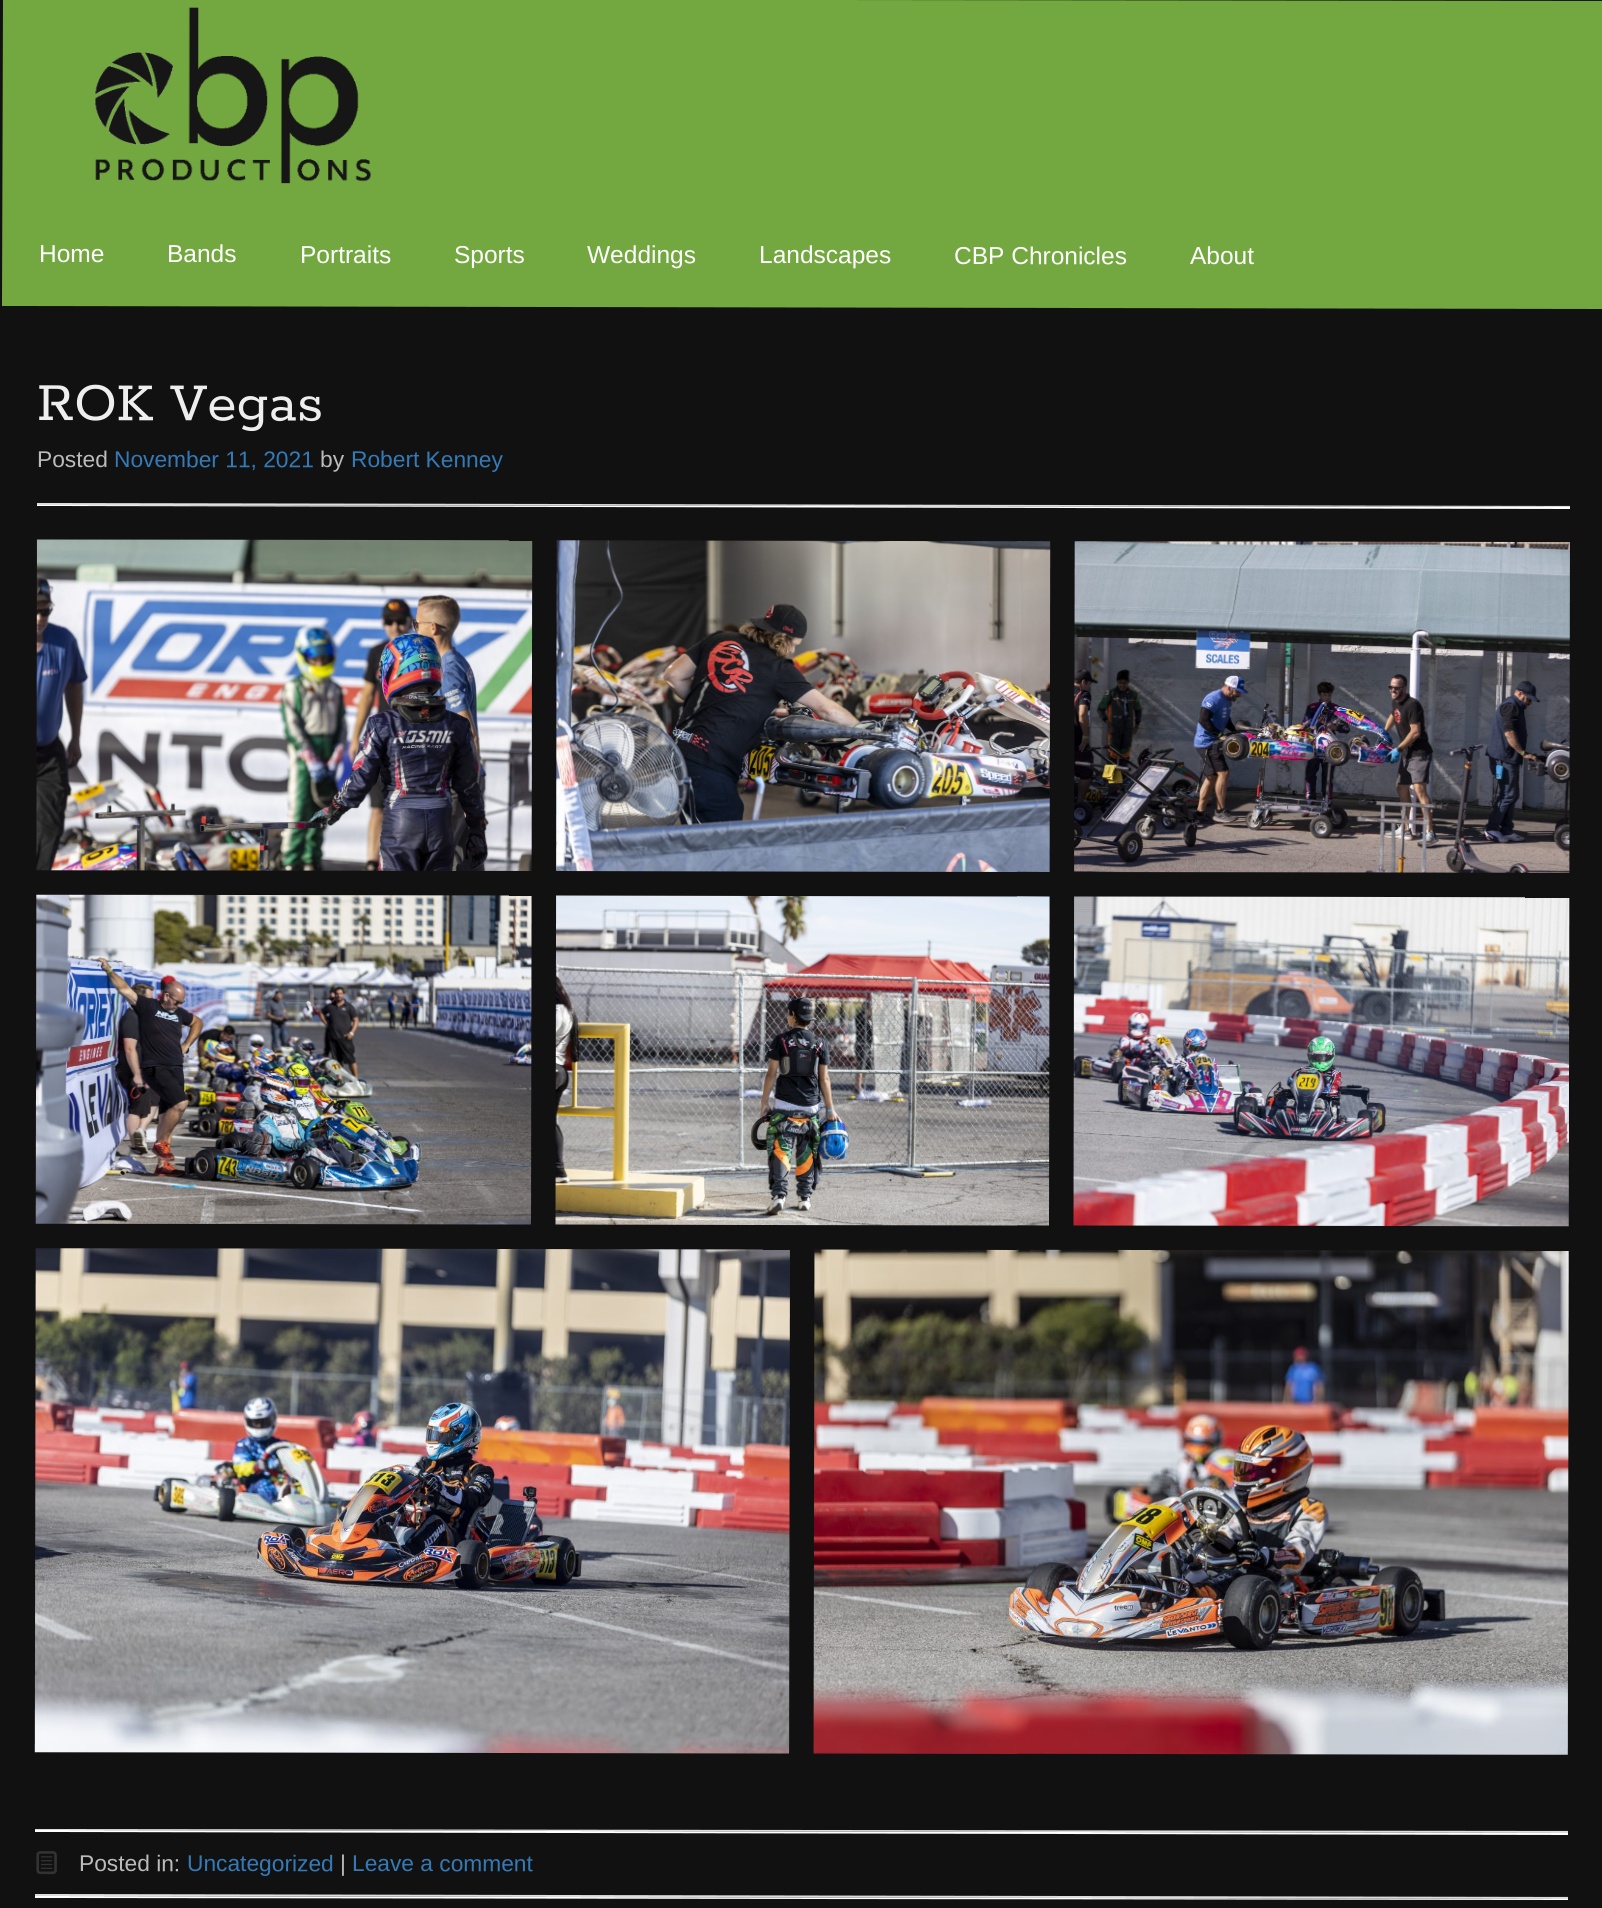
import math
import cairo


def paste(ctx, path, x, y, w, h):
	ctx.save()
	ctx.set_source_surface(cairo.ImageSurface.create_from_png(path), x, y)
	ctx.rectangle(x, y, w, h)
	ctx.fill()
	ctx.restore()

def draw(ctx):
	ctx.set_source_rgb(0.067, 0.067, 0.067)
	ctx.paint()
	ctx.set_source_rgb(0.451, 0.659, 0.251)
	ctx.new_path()
	ctx.move_to(3, -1)
	ctx.line_to(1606, 1)
	ctx.line_to(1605, 309)
	ctx.line_to(2, 306)
	ctx.close_path()
	ctx.fill()
	paste(ctx, 'media/1.png', 94, 7, 277, 177)
	ctx.select_font_face('Liberation Sans')
	ctx.set_font_size(24.5)
	ctx.set_source_rgb(1, 1, 1)
	ctx.save()
	ctx.translate(39, 262)
	ctx.rotate(0.1 * math.pi / 180)
	ctx.move_to(0, 0)
	ctx.show_text('Home')
	ctx.restore()
	ctx.save()
	ctx.translate(167, 262)
	ctx.rotate(0.1 * math.pi / 180)
	ctx.move_to(0, 0)
	ctx.show_text('Bands')
	ctx.restore()
	ctx.save()
	ctx.translate(300, 263)
	ctx.rotate(0.1 * math.pi / 180)
	ctx.move_to(0, 0)
	ctx.show_text('Portraits')
	ctx.restore()
	ctx.save()
	ctx.translate(454, 263)
	ctx.rotate(0.1 * math.pi / 180)
	ctx.move_to(0, 0)
	ctx.show_text('Sports')
	ctx.restore()
	ctx.save()
	ctx.translate(587, 263)
	ctx.rotate(0.1 * math.pi / 180)
	ctx.move_to(0, 0)
	ctx.show_text('Weddings')
	ctx.restore()
	ctx.save()
	ctx.translate(759, 263)
	ctx.rotate(0.1 * math.pi / 180)
	ctx.move_to(0, 0)
	ctx.show_text('Landscapes')
	ctx.restore()
	ctx.save()
	ctx.translate(954, 264)
	ctx.rotate(0.1 * math.pi / 180)
	ctx.move_to(0, 0)
	ctx.show_text('CBP Chronicles')
	ctx.restore()
	ctx.save()
	ctx.translate(1190, 264)
	ctx.rotate(0.1 * math.pi / 180)
	ctx.move_to(0, 0)
	ctx.show_text('About')
	ctx.restore()
	ctx.new_path()
	ctx.move_to(37, 378)
	ctx.line_to(37, 506)
	ctx.line_to(1570, 509)
	ctx.line_to(1570, 507)
	ctx.line_to(37, 505)
	ctx.close_path()
	ctx.fill()
	ctx.set_source_rgb(0.867, 0.867, 0.867)
	ctx.new_path()
	ctx.move_to(37, 503)
	ctx.line_to(1570, 506)
	ctx.line_to(1570, 507)
	ctx.line_to(37, 505)
	ctx.close_path()
	ctx.fill()
	ctx.select_font_face('Rokkitt')
	ctx.set_font_size(59.5)
	ctx.set_source_rgb(0.933, 0.933, 0.933)
	ctx.save()
	ctx.translate(37, 420)
	ctx.rotate(0.1 * math.pi / 180)
	ctx.move_to(0, 0)
	ctx.show_text('ROK Vegas')
	ctx.restore()
	ctx.select_font_face('Liberation Sans')
	ctx.set_font_size(22.75)
	ctx.set_source_rgb(0.733, 0.733, 0.733)
	ctx.save()
	ctx.translate(37, 467)
	ctx.rotate(0.1 * math.pi / 180)
	ctx.move_to(0, 0)
	ctx.show_text('Posted')
	ctx.restore()
	ctx.set_source_rgb(0.2, 0.478, 0.718)
	ctx.save()
	ctx.translate(114, 467)
	ctx.rotate(0.1 * math.pi / 180)
	ctx.move_to(0, 0)
	ctx.show_text('November 11, 2021')
	ctx.restore()
	ctx.set_source_rgb(0.733, 0.733, 0.733)
	ctx.save()
	ctx.translate(320, 467)
	ctx.rotate(0.1 * math.pi / 180)
	ctx.move_to(0, 0)
	ctx.show_text('by')
	ctx.restore()
	ctx.set_source_rgb(0.2, 0.478, 0.718)
	ctx.save()
	ctx.translate(351, 467)
	ctx.rotate(0.1 * math.pi / 180)
	ctx.move_to(0, 0)
	ctx.show_text('Robert Kenney')
	ctx.restore()
	paste(ctx, 'media/2.png', 36, 539, 497, 332)
	paste(ctx, 'media/3.png', 556, 540, 495, 332)
	paste(ctx, 'media/4.png', 1074, 541, 496, 332)
	paste(ctx, 'media/5.png', 35, 894, 497, 331)
	paste(ctx, 'media/6.png', 555, 895, 495, 331)
	paste(ctx, 'media/7.png', 1073, 896, 497, 331)
	paste(ctx, 'media/8.png', 34, 1248, 756, 506)
	paste(ctx, 'media/9.png', 813, 1249, 756, 506)
	ctx.set_source_rgb(1, 1, 1)
	ctx.new_path()
	ctx.move_to(35, 1830)
	ctx.line_to(35, 1832)
	ctx.line_to(1568, 1835)
	ctx.line_to(1568, 1833)
	ctx.close_path()
	ctx.fill()
	ctx.set_source_rgb(0.867, 0.867, 0.867)
	ctx.new_path()
	ctx.move_to(35, 1829)
	ctx.line_to(1568, 1831)
	ctx.line_to(1568, 1833)
	ctx.line_to(35, 1830)
	ctx.close_path()
	ctx.fill()
	paste(ctx, 'media/10.png', 36, 1851, 21, 24)
	ctx.set_source_rgb(0.733, 0.733, 0.733)
	ctx.save()
	ctx.translate(79, 1871)
	ctx.rotate(0.1 * math.pi / 180)
	ctx.move_to(0, 0)
	ctx.show_text('Posted in:')
	ctx.restore()
	ctx.set_source_rgb(0.2, 0.478, 0.718)
	ctx.save()
	ctx.translate(187, 1871)
	ctx.rotate(0.1 * math.pi / 180)
	ctx.move_to(0, 0)
	ctx.show_text('Uncategorized')
	ctx.restore()
	ctx.set_source_rgb(0.733, 0.733, 0.733)
	ctx.save()
	ctx.translate(340, 1871)
	ctx.rotate(0.1 * math.pi / 180)
	ctx.move_to(0, 0)
	ctx.show_text('|')
	ctx.restore()
	ctx.set_source_rgb(0.2, 0.478, 0.718)
	ctx.save()
	ctx.translate(352, 1871)
	ctx.rotate(0.1 * math.pi / 180)
	ctx.move_to(0, 0)
	ctx.show_text('Leave a comment')
	ctx.restore()
	ctx.set_source_rgb(1, 1, 1)
	ctx.new_path()
	ctx.move_to(35, 1896)
	ctx.line_to(1568, 1899)
	ctx.line_to(1568, 1900)
	ctx.line_to(35, 1898)
	ctx.close_path()
	ctx.fill()
	ctx.set_source_rgb(0.867, 0.867, 0.867)
	ctx.new_path()
	ctx.move_to(35, 1894)
	ctx.line_to(1568, 1897)
	ctx.line_to(1568, 1899)
	ctx.line_to(35, 1896)
	ctx.close_path()
	ctx.fill()


surface = cairo.ImageSurface(cairo.FORMAT_RGB24, 1602, 1908)
ctx = cairo.Context(surface)
options = cairo.FontOptions()
options.set_hint_metrics(cairo.HINT_METRICS_OFF)
options.set_hint_style(cairo.HINT_STYLE_NONE)
ctx.set_font_options(options)
ctx.set_miter_limit(4)
draw(ctx)
surface.write_to_png('image.png')
